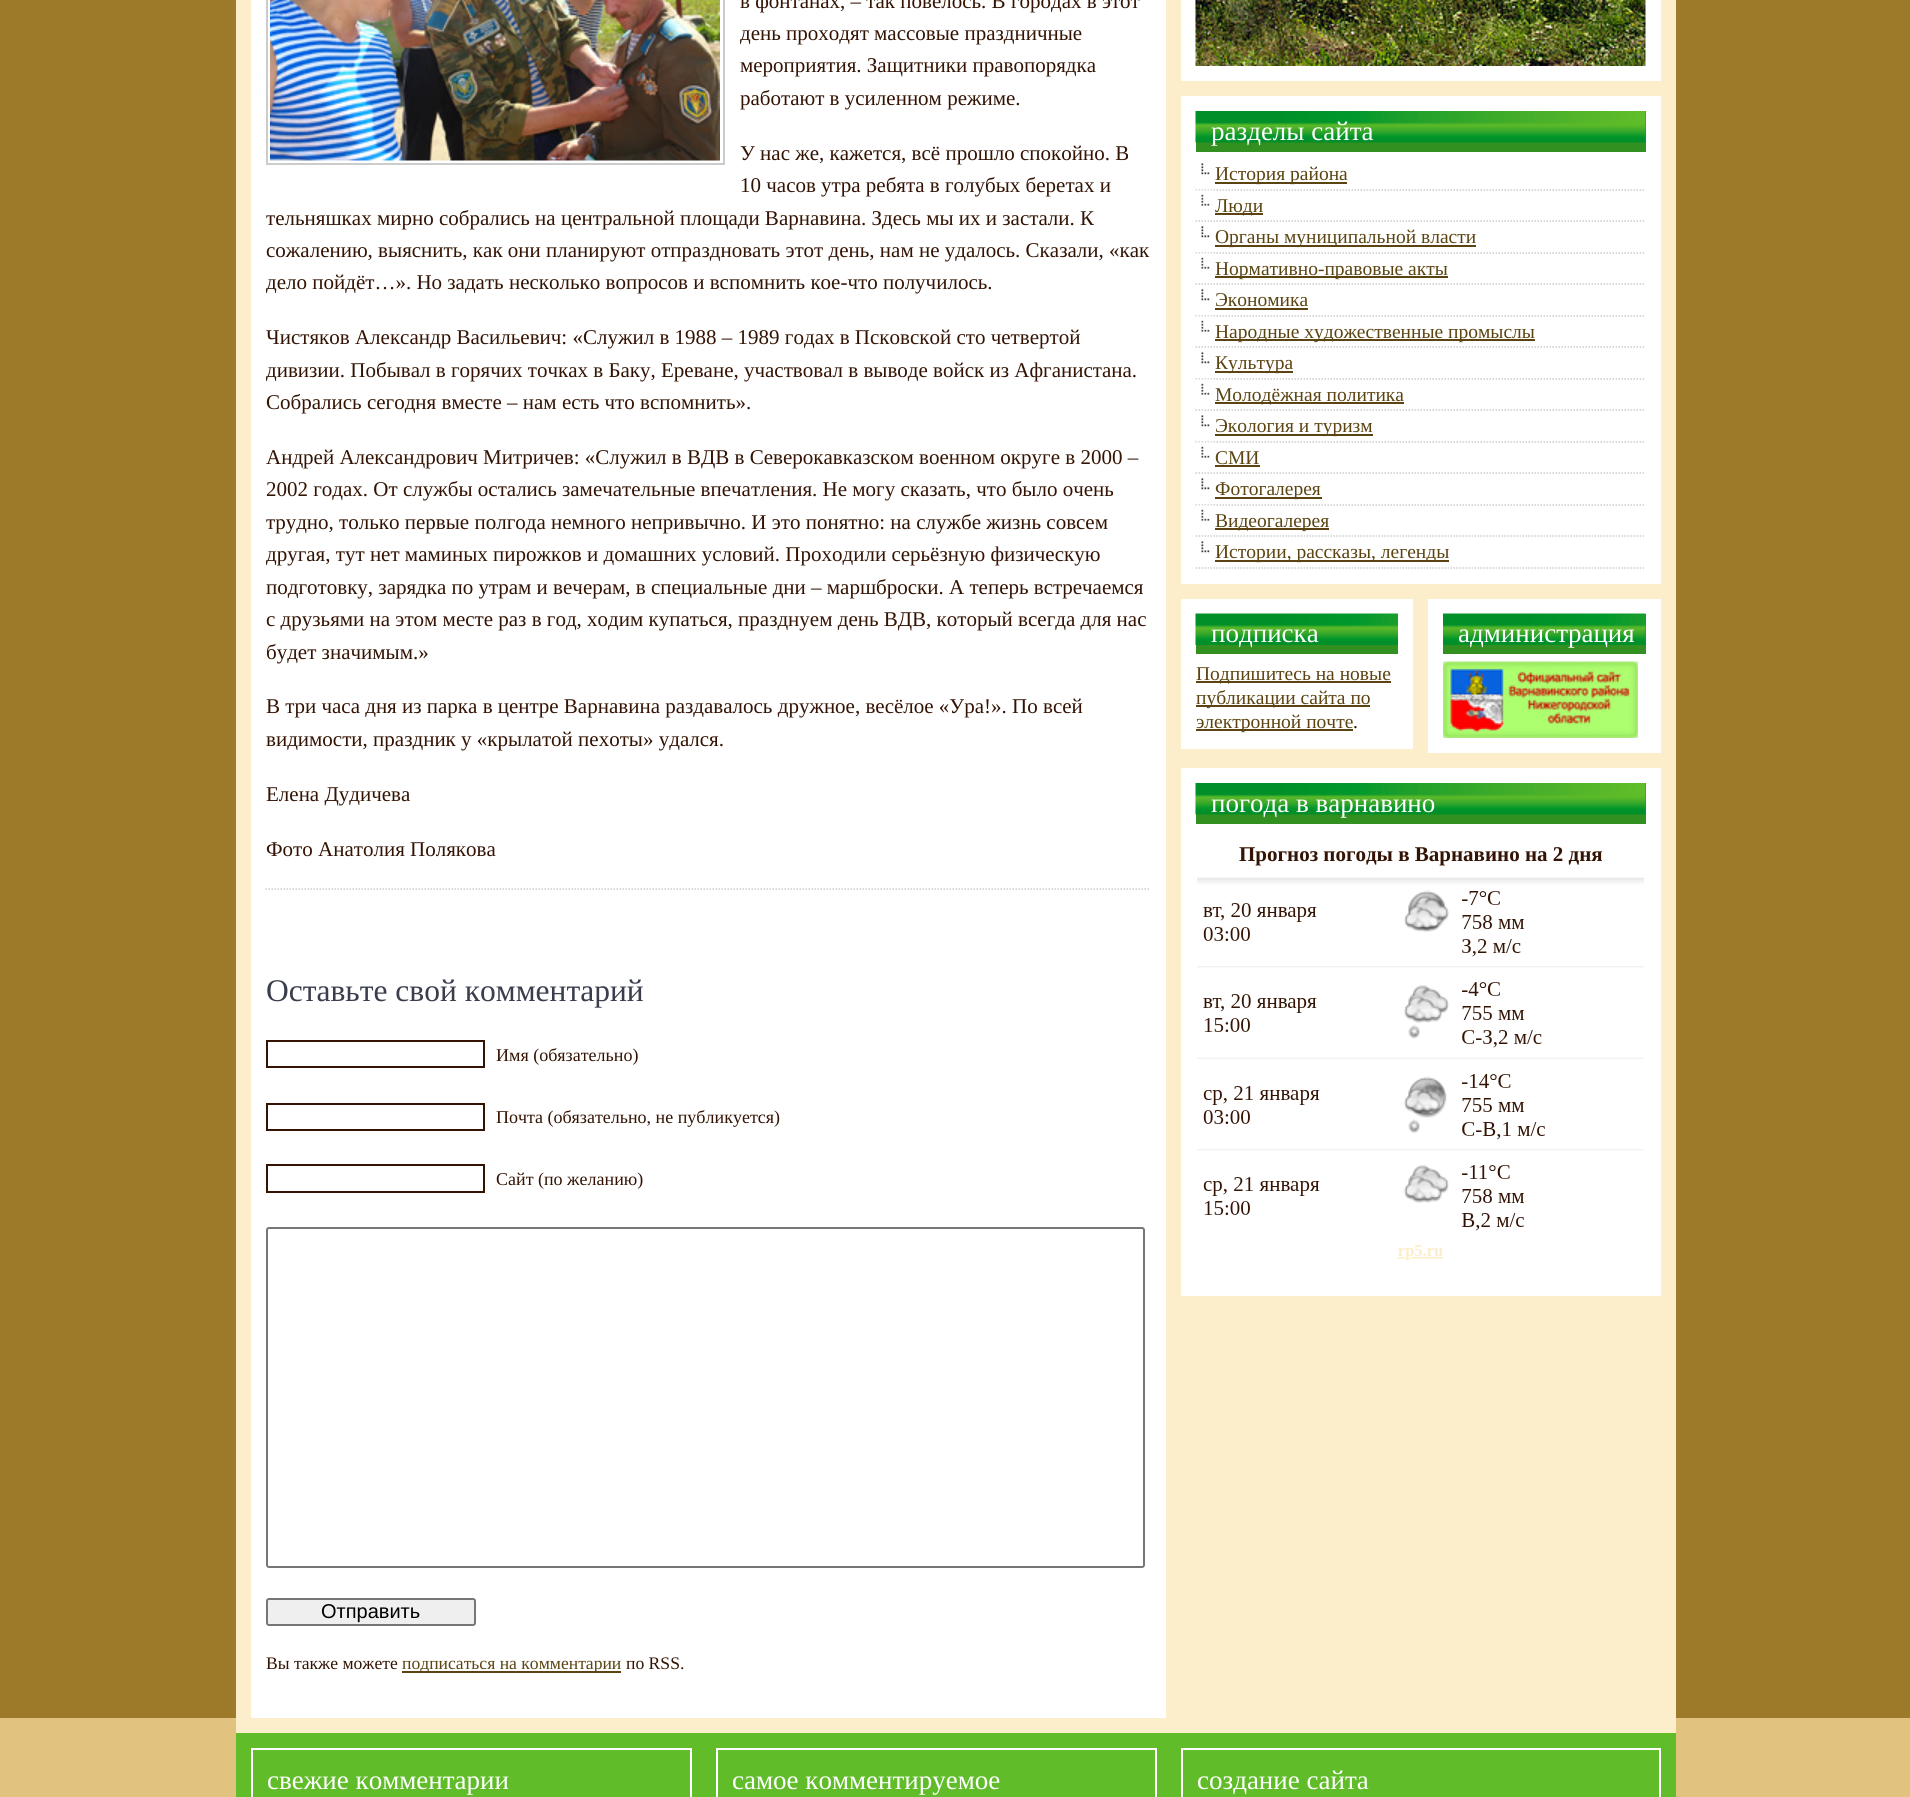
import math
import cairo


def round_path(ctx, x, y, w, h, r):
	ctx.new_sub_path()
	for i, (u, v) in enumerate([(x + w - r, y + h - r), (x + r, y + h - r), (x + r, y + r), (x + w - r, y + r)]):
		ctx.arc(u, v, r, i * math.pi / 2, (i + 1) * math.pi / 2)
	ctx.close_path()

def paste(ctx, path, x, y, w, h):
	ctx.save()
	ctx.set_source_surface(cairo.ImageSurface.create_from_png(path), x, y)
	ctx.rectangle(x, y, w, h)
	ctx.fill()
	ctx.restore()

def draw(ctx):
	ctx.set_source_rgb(0.886, 0.761, 0.498)
	ctx.paint()
	ctx.set_source_rgb(0.616, 0.475, 0.165)
	ctx.rectangle(0, 0, 1910, 1718)
	ctx.fill()
	ctx.set_source_rgb(0.992, 0.933, 0.796)
	ctx.rectangle(236, 0, 1440, 1733)
	ctx.fill()
	ctx.set_source_rgb(1, 1, 1)
	ctx.rectangle(251, 0, 915, 1718)
	ctx.fill()
	ctx.new_path()
	ctx.move_to(265.5, 889)
	ctx.line_to(1150.5, 889)
	ctx.set_source_rgb(0.8, 0.8, 0.8)
	ctx.set_line_width(1.5)
	ctx.set_dash([1.5, 1.5])
	ctx.stroke()
	ctx.rectangle(267, -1, 457, 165)
	ctx.set_line_width(2)
	ctx.set_dash([])
	ctx.stroke()
	paste(ctx, 'media/1.png', 270, 0, 450, 161)
	ctx.select_font_face('Liberation Serif')
	ctx.set_font_size(21)
	ctx.set_source_rgb(0.2, 0.075, 0.012)
	for x, y, s in [
		(740, 8, 'в фонтанах, – так повелось. В городах в этот'),
		(740, 40, 'день проходят массовые праздничные'),
		(740, 72, 'мероприятия. Защитники правопорядка'),
		(740, 105, 'работают в усиленном режиме.'),
		(740, 160, 'У нас же, кажется, всё прошло спокойно. В'),
		(740, 192, '10 часов утра ребята в голубых беретах и'),
		(266, 225, 'тельняшках мирно собрались на центральной площади Варнавина. Здесь мы их и застали. К'),
		(266, 257, 'сожалению, выяснить, как они планируют отпраздновать этот день, нам не удалось. Сказали, «как'),
		(266, 289, 'дело пойдёт…». Но задать несколько вопросов и вспомнить кое-что получилось.'),
		(266, 344, 'Чистяков Александр Васильевич: «Служил в 1988 – 1989 годах в Псковской сто четвертой'),
		(266, 377, 'дивизии. Побывал в горячих точках в Баку, Ереване, участвовал в выводе войск из Афганистана.'),
		(266, 409, 'Собрались сегодня вместе – нам есть что вспомнить».'),
		(266, 464, 'Андрей Александрович Митричев: «Служил в ВДВ в Северокавказском военном округе в 2000 –'),
		(266, 496, '2002 годах. От службы остались замечательные впечатления. Не могу сказать, что было очень'),
		(266, 529, 'трудно, только первые полгода немного непривычно. И это понятно: на службе жизнь совсем'),
		(266, 561, 'другая, тут нет маминых пирожков и домашних условий. Проходили серьёзную физическую'),
		(266, 594, 'подготовку, зарядка по утрам и вечерам, в специальные дни – маршброски. А теперь встречаемся'),
		(266, 626, 'с друзьями на этом месте раз в год, ходим купаться, празднуем день ВДВ, который всегда для нас'),
		(266, 659, 'будет значимым.»'),
		(266, 713, 'В три часа дня из парка в центре Варнавина раздавалось дружное, весёлое «Ура!». По всей'),
		(266, 746, 'видимости, праздник у «крылатой пехоты» удался.'),
		(266, 801, 'Елена Дудичева'),
		(266, 856, 'Фото Анатолия Полякова'),
	]:
		ctx.move_to(x, y)
		ctx.show_text(s)
	ctx.set_font_size(31.5)
	ctx.set_source_rgb(0.224, 0.239, 0.298)
	ctx.move_to(266, 1001)
	ctx.show_text('Оставьте свой комментарий')
	ctx.rectangle(267, 1041, 217, 26)
	ctx.set_source_rgb(0.2, 0.075, 0.012)
	ctx.stroke()
	ctx.set_font_size(18)
	ctx.move_to(496, 1061)
	ctx.show_text('Имя (обязательно)')
	ctx.rectangle(267, 1104, 217, 26)
	ctx.stroke()
	ctx.move_to(496, 1123)
	ctx.show_text('Почта (обязательно, не публикуется)')
	ctx.rectangle(267, 1165, 217, 27)
	ctx.stroke()
	ctx.move_to(496, 1185)
	ctx.show_text('Сайт (по желанию)')
	round_path(ctx, 267, 1228, 877, 339, 2)
	ctx.set_source_rgb(0.463, 0.463, 0.463)
	ctx.stroke()
	ctx.set_source_rgb(0.937, 0.937, 0.937)
	round_path(ctx, 267, 1599, 208, 26, 2)
	ctx.fill_preserve()
	ctx.set_source_rgb(0.463, 0.463, 0.463)
	ctx.stroke()
	ctx.select_font_face('Liberation Sans')
	ctx.set_font_size(20)
	ctx.set_source_rgb(0, 0, 0)
	ctx.move_to(321, 1618)
	ctx.show_text('Отправить')
	ctx.select_font_face('Liberation Serif')
	ctx.set_font_size(17.6)
	ctx.set_source_rgb(0.2, 0.075, 0.012)
	ctx.move_to(266, 1669)
	ctx.show_text('Вы также можете')
	ctx.set_source_rgb(0.357, 0.267, 0.067)
	ctx.rectangle(402, 1671, 219, 2)
	ctx.fill()
	ctx.move_to(402, 1669)
	ctx.show_text('подписаться на комментарии')
	ctx.set_source_rgb(0.2, 0.075, 0.012)
	ctx.move_to(626, 1669)
	ctx.show_text('по RSS.')
	ctx.set_source_rgb(1, 1, 1)
	ctx.rectangle(1181, 0, 480, 81)
	ctx.fill()
	paste(ctx, 'media/2.png', 1195, 0, 451, 66)
	ctx.rectangle(1181, 96, 480, 488)
	ctx.fill()
	ctx.set_source_rgb(0.192, 0.565, 0.122)
	ctx.rectangle(1196, 111, 450, 41)
	ctx.fill()
	paste(ctx, 'media/3.png', 1195, 111, 451, 32)
	ctx.set_font_size(27)
	ctx.set_source_rgb(1, 1, 1)
	ctx.move_to(1211, 140)
	ctx.show_text('разделы сайта')
	paste(ctx, 'media/4.png', 1201, 163, 9, 12)
	ctx.new_path()
	ctx.move_to(1195.5, 190)
	ctx.line_to(1645.5, 190)
	ctx.set_source_rgb(0.8, 0.8, 0.8)
	ctx.set_line_width(1.5)
	ctx.set_dash([1.5, 1.5])
	ctx.stroke()
	ctx.set_source_rgb(0.357, 0.267, 0.067)
	ctx.rectangle(1215, 182, 132, 2)
	ctx.fill()
	ctx.set_font_size(19.5)
	ctx.move_to(1215, 180)
	ctx.show_text('История района')
	paste(ctx, 'media/5.png', 1195, 190, 19, 16)
	ctx.new_path()
	ctx.move_to(1195.5, 221)
	ctx.line_to(1645.5, 221)
	ctx.set_source_rgb(0.8, 0.8, 0.8)
	ctx.stroke()
	ctx.set_source_rgb(0.357, 0.267, 0.067)
	ctx.rectangle(1215, 213, 48, 2)
	ctx.fill()
	ctx.move_to(1215, 212)
	ctx.show_text('Люди')
	paste(ctx, 'media/4.png', 1201, 226, 9, 12)
	ctx.new_path()
	ctx.move_to(1195.5, 253)
	ctx.line_to(1645.5, 253)
	ctx.set_source_rgb(0.8, 0.8, 0.8)
	ctx.stroke()
	ctx.set_source_rgb(0.357, 0.267, 0.067)
	ctx.rectangle(1215, 245, 261, 2)
	ctx.fill()
	ctx.move_to(1215, 243)
	ctx.show_text('Органы муниципальной власти')
	paste(ctx, 'media/5.png', 1195, 253, 19, 16)
	ctx.new_path()
	ctx.move_to(1195.5, 284)
	ctx.line_to(1645.5, 284)
	ctx.set_source_rgb(0.8, 0.8, 0.8)
	ctx.stroke()
	ctx.set_source_rgb(0.357, 0.267, 0.067)
	ctx.rectangle(1215, 276, 233, 2)
	ctx.fill()
	ctx.move_to(1215, 275)
	ctx.show_text('Нормативно-правовые акты')
	paste(ctx, 'media/4.png', 1201, 289, 9, 12)
	ctx.new_path()
	ctx.move_to(1195.5, 316)
	ctx.line_to(1645.5, 316)
	ctx.set_source_rgb(0.8, 0.8, 0.8)
	ctx.stroke()
	ctx.set_source_rgb(0.357, 0.267, 0.067)
	ctx.move_to(1215, 306)
	ctx.show_text('Экономика')
	ctx.rectangle(1215, 308, 93, 2)
	ctx.fill()
	paste(ctx, 'media/5.png', 1195, 316, 19, 16)
	ctx.new_path()
	ctx.move_to(1195.5, 347)
	ctx.line_to(1645.5, 347)
	ctx.set_source_rgb(0.8, 0.8, 0.8)
	ctx.stroke()
	ctx.set_source_rgb(0.357, 0.267, 0.067)
	ctx.rectangle(1215, 339, 320, 2)
	ctx.fill()
	ctx.move_to(1215, 338)
	ctx.show_text('Народные художественные промыслы')
	paste(ctx, 'media/4.png', 1201, 352, 9, 12)
	ctx.new_path()
	ctx.move_to(1195.5, 379)
	ctx.line_to(1645.5, 379)
	ctx.set_source_rgb(0.8, 0.8, 0.8)
	ctx.stroke()
	ctx.set_source_rgb(0.357, 0.267, 0.067)
	ctx.rectangle(1215, 371, 78, 2)
	ctx.fill()
	ctx.move_to(1215, 369)
	ctx.show_text('Культура')
	paste(ctx, 'media/5.png', 1195, 379, 19, 16)
	ctx.new_path()
	ctx.move_to(1195.5, 410)
	ctx.line_to(1645.5, 410)
	ctx.set_source_rgb(0.8, 0.8, 0.8)
	ctx.stroke()
	ctx.set_source_rgb(0.357, 0.267, 0.067)
	ctx.rectangle(1215, 402, 189, 2)
	ctx.fill()
	ctx.move_to(1215, 401)
	ctx.show_text('Молодёжная политика')
	paste(ctx, 'media/4.png', 1201, 415, 9, 12)
	ctx.new_path()
	ctx.move_to(1195.5, 442)
	ctx.line_to(1645.5, 442)
	ctx.set_source_rgb(0.8, 0.8, 0.8)
	ctx.stroke()
	ctx.set_source_rgb(0.357, 0.267, 0.067)
	ctx.rectangle(1215, 434, 158, 2)
	ctx.fill()
	ctx.move_to(1215, 432)
	ctx.show_text('Экология и туризм')
	paste(ctx, 'media/5.png', 1195, 442, 19, 16)
	ctx.new_path()
	ctx.move_to(1195.5, 473)
	ctx.line_to(1645.5, 473)
	ctx.set_source_rgb(0.8, 0.8, 0.8)
	ctx.stroke()
	ctx.set_source_rgb(0.357, 0.267, 0.067)
	ctx.move_to(1215, 464)
	ctx.show_text('СМИ')
	ctx.rectangle(1215, 465, 45, 2)
	ctx.fill()
	paste(ctx, 'media/4.png', 1201, 478, 9, 12)
	ctx.new_path()
	ctx.move_to(1195.5, 505)
	ctx.line_to(1645.5, 505)
	ctx.set_source_rgb(0.8, 0.8, 0.8)
	ctx.stroke()
	ctx.set_source_rgb(0.357, 0.267, 0.067)
	ctx.rectangle(1215, 497, 107, 2)
	ctx.fill()
	ctx.move_to(1215, 495)
	ctx.show_text('Фотогалерея')
	paste(ctx, 'media/5.png', 1195, 505, 19, 16)
	ctx.new_path()
	ctx.move_to(1195.5, 536)
	ctx.line_to(1645.5, 536)
	ctx.set_source_rgb(0.8, 0.8, 0.8)
	ctx.stroke()
	ctx.set_source_rgb(0.357, 0.267, 0.067)
	ctx.rectangle(1215, 528, 114, 2)
	ctx.fill()
	ctx.move_to(1215, 527)
	ctx.show_text('Видеогалерея')
	paste(ctx, 'media/4.png', 1201, 541, 9, 12)
	ctx.new_path()
	ctx.move_to(1195.5, 568)
	ctx.line_to(1645.5, 568)
	ctx.set_source_rgb(0.8, 0.8, 0.8)
	ctx.stroke()
	ctx.set_source_rgb(0.357, 0.267, 0.067)
	ctx.rectangle(1215, 560, 234, 2)
	ctx.fill()
	ctx.move_to(1215, 558)
	ctx.show_text('Истории, рассказы, легенды')
	ctx.set_source_rgb(1, 1, 1)
	ctx.rectangle(1181, 599, 232, 150)
	ctx.fill()
	ctx.set_source_rgb(0.192, 0.565, 0.122)
	ctx.rectangle(1196, 645, 202, 9)
	ctx.fill()
	paste(ctx, 'media/6.png', 1195, 613, 203, 32)
	ctx.set_font_size(27)
	ctx.set_source_rgb(1, 1, 1)
	ctx.move_to(1211, 642)
	ctx.show_text('подписка')
	ctx.set_source_rgb(0.357, 0.267, 0.067)
	ctx.rectangle(1196, 681, 195, 2)
	ctx.fill()
	ctx.set_font_size(19.5)
	ctx.move_to(1196, 680)
	ctx.show_text('Подпишитесь на новые')
	ctx.rectangle(1196, 705, 174, 2)
	ctx.fill()
	ctx.move_to(1196, 704)
	ctx.show_text('публикации сайта по')
	ctx.rectangle(1196, 729, 157, 2)
	ctx.fill()
	ctx.move_to(1196, 728)
	ctx.show_text('электронной почте')
	ctx.set_source_rgb(0.2, 0.075, 0.012)
	ctx.move_to(1353, 728)
	ctx.show_text('.')
	ctx.set_source_rgb(1, 1, 1)
	ctx.rectangle(1428, 599, 233, 154)
	ctx.fill()
	ctx.set_source_rgb(0.192, 0.565, 0.122)
	ctx.rectangle(1443, 614, 203, 40)
	ctx.fill()
	paste(ctx, 'media/7.png', 1443, 613, 203, 32)
	ctx.set_font_size(27)
	ctx.set_source_rgb(1, 1, 1)
	ctx.move_to(1458, 642)
	ctx.show_text('администрация')
	paste(ctx, 'media/8.png', 1443, 661, 195, 77)
	ctx.rectangle(1181, 768, 480, 528)
	ctx.fill()
	ctx.set_source_rgb(0.192, 0.565, 0.122)
	ctx.rectangle(1196, 783, 450, 41)
	ctx.fill()
	paste(ctx, 'media/3.png', 1195, 783, 451, 32)
	ctx.set_source_rgb(1, 1, 1)
	ctx.move_to(1211, 812)
	ctx.show_text('погода в варнавино')
	ctx.select_font_face('Liberation Serif', cairo.FONT_SLANT_NORMAL, cairo.FONT_WEIGHT_BOLD)
	ctx.set_font_size(21)
	ctx.set_source_rgb(0.2, 0.075, 0.012)
	ctx.move_to(1239, 861)
	ctx.show_text('Прогноз погоды в Варнавино на 2 дня')
	paste(ctx, 'media/9.png', 1197, 877, 447, 383)
	ctx.set_source_rgb(0.376, 0.741, 0.161)
	ctx.rectangle(236, 1733, 1440, 64)
	ctx.fill()
	ctx.rectangle(252, 1749, 439, 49)
	ctx.set_source_rgb(1, 1, 1)
	ctx.set_line_width(2)
	ctx.set_dash([])
	ctx.stroke()
	ctx.select_font_face('Liberation Serif')
	ctx.set_font_size(27)
	ctx.move_to(267, 1789)
	ctx.show_text('свежие комментарии')
	ctx.rectangle(717, 1749, 439, 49)
	ctx.stroke()
	ctx.move_to(732, 1789)
	ctx.show_text('самое комментируемое')
	ctx.rectangle(1182, 1749, 478, 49)
	ctx.stroke()
	ctx.move_to(1197, 1789)
	ctx.show_text('создание сайта')


surface = cairo.ImageSurface(cairo.FORMAT_RGB24, 1910, 1797)
ctx = cairo.Context(surface)
options = cairo.FontOptions()
options.set_hint_metrics(cairo.HINT_METRICS_OFF)
options.set_hint_style(cairo.HINT_STYLE_NONE)
ctx.set_font_options(options)
ctx.set_miter_limit(4)
draw(ctx)
surface.write_to_png('image.png')
